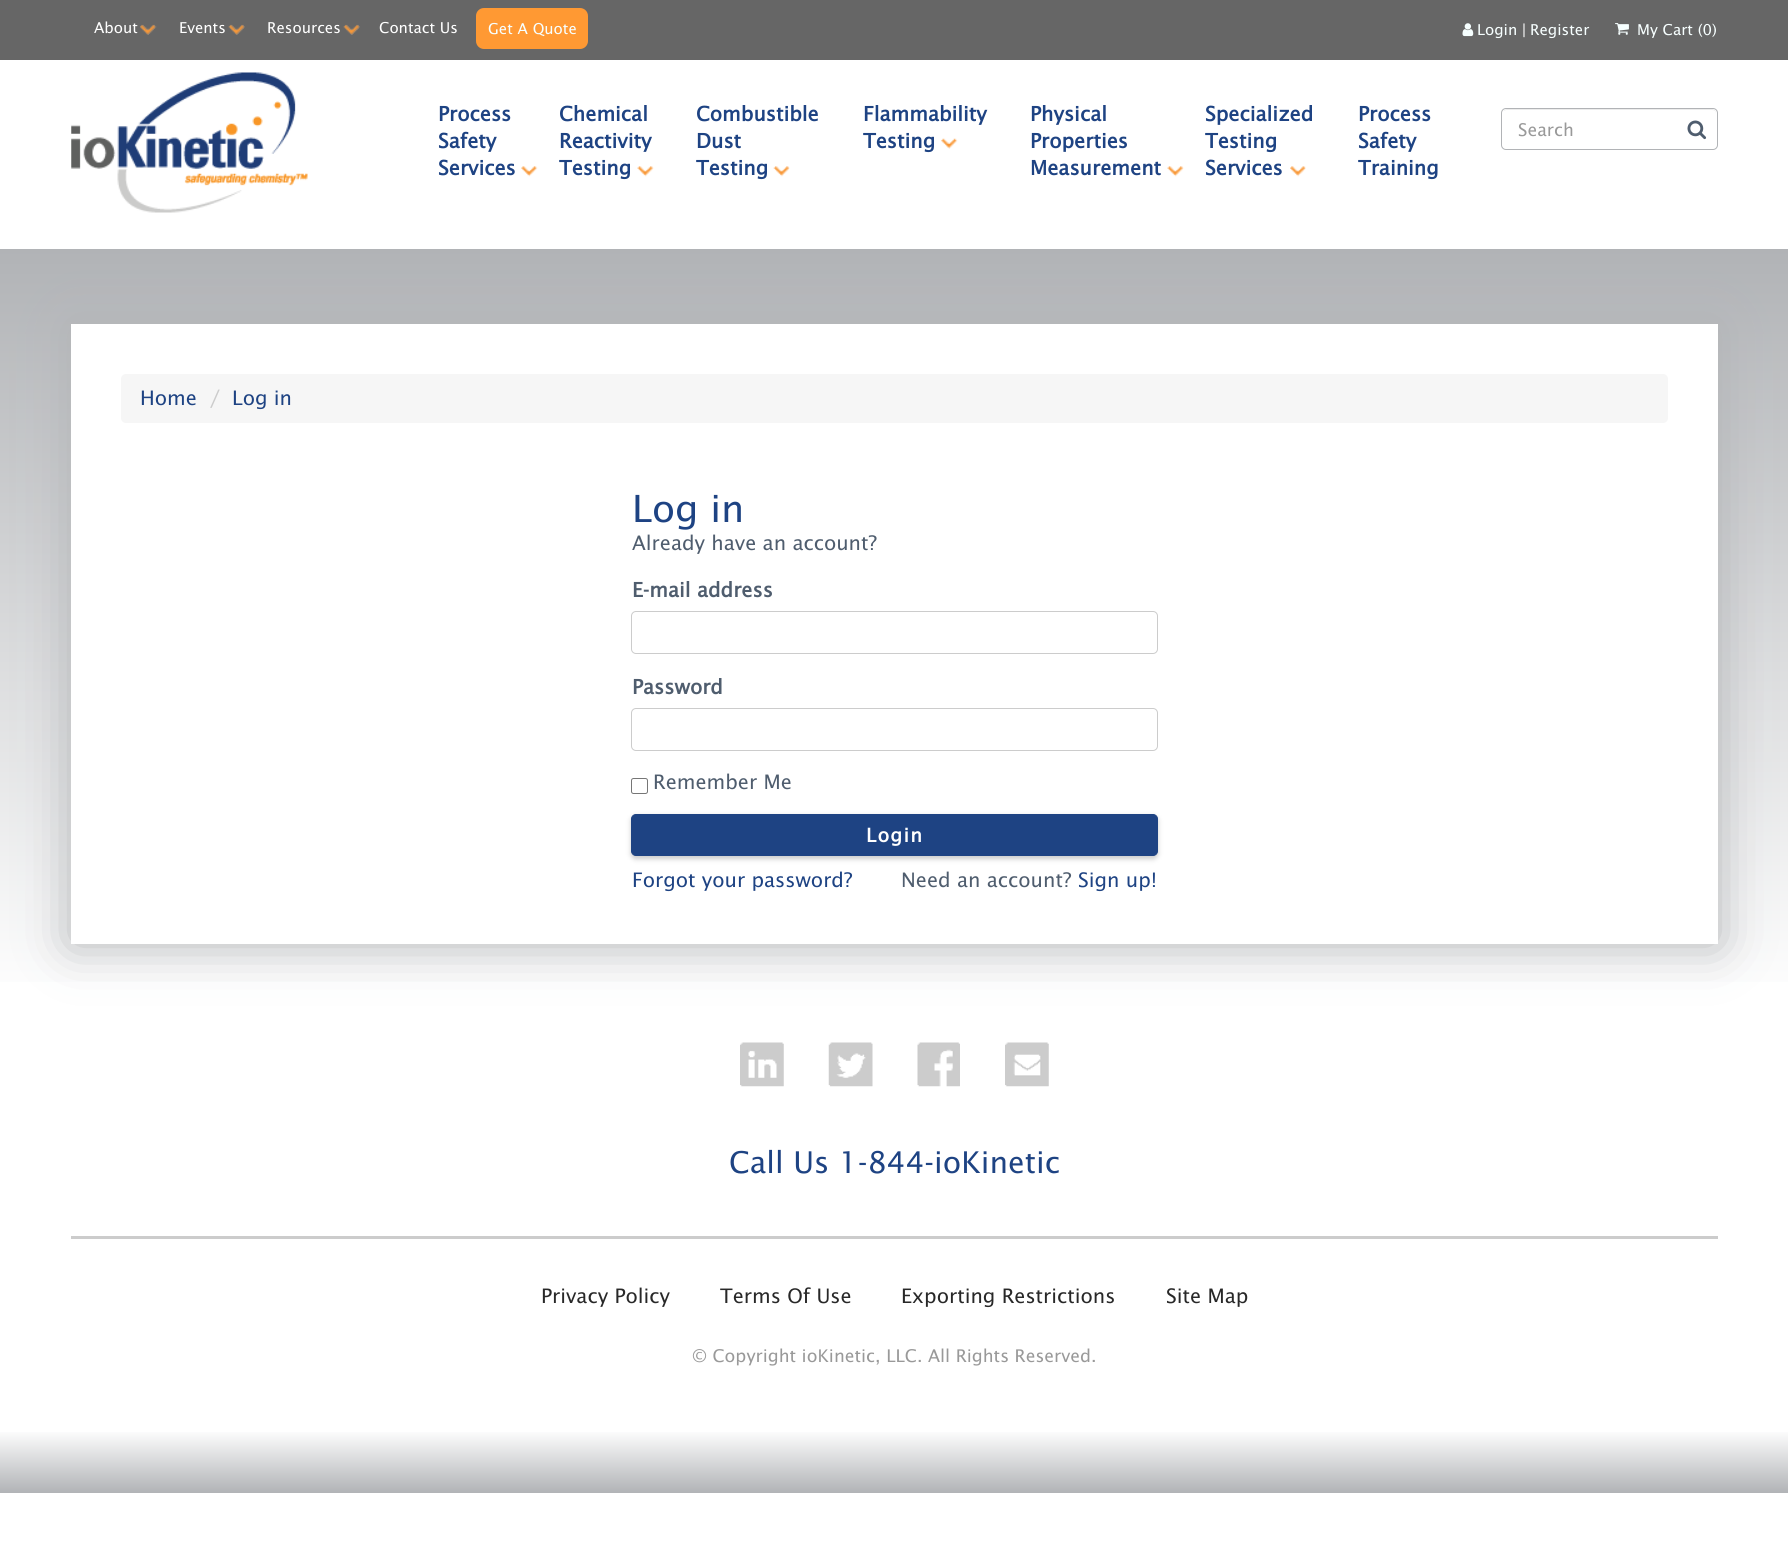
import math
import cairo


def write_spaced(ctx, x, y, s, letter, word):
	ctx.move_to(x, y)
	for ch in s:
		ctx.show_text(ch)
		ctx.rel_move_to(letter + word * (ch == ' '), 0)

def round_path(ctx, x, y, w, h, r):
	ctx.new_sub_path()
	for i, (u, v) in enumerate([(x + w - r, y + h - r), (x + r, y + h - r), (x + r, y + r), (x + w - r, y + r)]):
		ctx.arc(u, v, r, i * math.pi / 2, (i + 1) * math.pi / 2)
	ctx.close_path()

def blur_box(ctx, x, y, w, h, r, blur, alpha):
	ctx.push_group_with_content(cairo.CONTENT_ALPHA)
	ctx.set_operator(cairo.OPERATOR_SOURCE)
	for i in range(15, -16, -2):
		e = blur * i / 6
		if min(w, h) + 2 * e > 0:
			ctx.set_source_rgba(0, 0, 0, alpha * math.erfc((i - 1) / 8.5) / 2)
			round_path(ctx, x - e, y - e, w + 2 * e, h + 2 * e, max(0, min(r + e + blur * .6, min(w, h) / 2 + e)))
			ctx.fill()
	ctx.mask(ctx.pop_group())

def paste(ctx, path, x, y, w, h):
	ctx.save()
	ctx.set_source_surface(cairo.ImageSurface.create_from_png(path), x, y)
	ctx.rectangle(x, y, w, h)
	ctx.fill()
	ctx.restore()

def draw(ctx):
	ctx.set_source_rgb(1, 1, 1)
	ctx.paint()
	ctx.set_source_rgb(0.4, 0.4, 0.4)
	ctx.rectangle(0, 0, 1788, 60)
	ctx.fill()
	paste(ctx, 'media/1.png', 140, 24, 17, 11)
	ctx.select_font_face('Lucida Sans')
	ctx.set_font_size(15)
	ctx.set_source_rgb(1, 1, 1)
	ctx.move_to(94, 33)
	ctx.show_text('About')
	paste(ctx, 'media/2.png', 228, 24, 17, 11)
	ctx.move_to(179, 33)
	ctx.show_text('Events')
	paste(ctx, 'media/3.png', 343, 24, 17, 11)
	ctx.move_to(267, 33)
	ctx.show_text('Resources')
	ctx.move_to(379, 33)
	ctx.show_text('Contact Us')
	ctx.set_source_rgb(1, 0.6, 0.2)
	round_path(ctx, 476, 8, 112, 41, 8)
	ctx.fill()
	ctx.set_source_rgb(0.965, 1, 1)
	ctx.move_to(488, 34)
	ctx.show_text('Get A Quote')
	paste(ctx, 'media/4.png', 1462, 23, 12, 14)
	ctx.move_to(1477, 35)
	ctx.show_text('Login')
	ctx.set_source_rgb(1, 1, 1)
	ctx.move_to(1522, 35)
	ctx.show_text('|')
	ctx.set_source_rgb(0.965, 1, 1)
	ctx.move_to(1530, 35)
	ctx.show_text('Register')
	paste(ctx, 'media/5.png', 1615, 23, 14, 12)
	ctx.move_to(1637, 35)
	ctx.show_text('My Cart (0)')
	paste(ctx, 'media/6.png', 71, 72, 237, 141)
	ctx.select_font_face('Lucida Sans', cairo.FONT_SLANT_NORMAL, cairo.FONT_WEIGHT_BOLD)
	ctx.set_font_size(20)
	ctx.set_source_rgb(0.118, 0.263, 0.514)
	for x, y, s in [
		(438, 121, 'Process'),
		(438, 148, 'Safety'),
		(438, 175, 'Services'),
	]:
		ctx.move_to(x, y)
		ctx.show_text(s)
	paste(ctx, 'media/7.png', 521, 166, 17, 11)
	for x, y, s in [
		(559, 121, 'Chemical'),
		(559, 148, 'Reactivity'),
		(559, 175, 'Testing'),
	]:
		ctx.move_to(x, y)
		ctx.show_text(s)
	paste(ctx, 'media/8.png', 637, 166, 17, 11)
	for x, y, s in [
		(696, 121, 'Combustible'),
		(696, 148, 'Dust'),
		(696, 175, 'Testing'),
	]:
		ctx.move_to(x, y)
		ctx.show_text(s)
	paste(ctx, 'media/9.png', 773, 166, 17, 11)
	ctx.move_to(863, 121)
	ctx.show_text('Flammability')
	ctx.move_to(863, 148)
	ctx.show_text('Testing')
	paste(ctx, 'media/10.png', 941, 138, 17, 11)
	for x, y, s in [
		(1030, 121, 'Physical'),
		(1030, 148, 'Properties'),
		(1030, 175, 'Measurement'),
	]:
		ctx.move_to(x, y)
		ctx.show_text(s)
	paste(ctx, 'media/11.png', 1167, 166, 17, 11)
	for x, y, s in [
		(1205, 121, 'Specialized'),
		(1205, 148, 'Testing'),
		(1205, 175, 'Services'),
	]:
		ctx.move_to(x, y)
		ctx.show_text(s)
	paste(ctx, 'media/12.png', 1290, 166, 16, 11)
	for x, y, s in [
		(1358, 121, 'Process'),
		(1358, 148, 'Safety'),
		(1358, 175, 'Training'),
	]:
		ctx.move_to(x, y)
		ctx.show_text(s)
	ctx.set_source_rgb(0.925, 0.925, 0.925)
	ctx.new_path()
	ctx.move_to(1506, 110)
	ctx.line_to(1712, 110)
	ctx.curve_to(1715, 110, 1716, 112, 1716, 114)
	ctx.line_to(1716, 113)
	ctx.curve_to(1716, 111, 1714, 109, 1712, 109)
	ctx.line_to(1507, 109)
	ctx.curve_to(1506, 109, 1504, 110, 1504, 111)
	ctx.close_path()
	ctx.fill()
	round_path(ctx, 1501.5, 108.5, 216, 41, 4.5)
	ctx.set_source_rgb(0.694, 0.702, 0.714)
	ctx.set_line_width(1)
	ctx.stroke()
	ctx.select_font_face('Lucida Sans')
	ctx.set_font_size(17.5)
	ctx.set_source_rgb(0.6, 0.6, 0.6)
	ctx.move_to(1518, 136)
	ctx.show_text('Search')
	paste(ctx, 'media/13.png', 1687, 120, 20, 20)
	gradient = cairo.LinearGradient(894, 249, 894, 1006)
	gradient.add_color_stop_rgba(0, 0.694, 0.702, 0.714, 1)
	gradient.add_color_stop_rgba(1, 1, 1, 1, 1)
	ctx.set_source(gradient)
	ctx.rectangle(0, 249, 1788, 733)
	ctx.fill()
	ctx.set_source_rgb(0.694, 0.702, 0.714)
	blur_box(ctx, 71, 324, 1647, 620, 0, 25, 1)
	ctx.set_source_rgb(1, 1, 1)
	ctx.rectangle(71, 324, 1647, 620)
	ctx.fill()
	ctx.set_source_rgb(0.961, 0.961, 0.961)
	round_path(ctx, 121, 374, 1547, 49, 5)
	ctx.fill()
	ctx.set_font_size(20)
	ctx.set_source_rgb(0.118, 0.263, 0.514)
	ctx.move_to(140, 405)
	ctx.show_text('Home')
	ctx.set_source_rgb(0.8, 0.8, 0.8)
	ctx.move_to(210, 405)
	ctx.show_text('/')
	ctx.set_source_rgb(0.118, 0.263, 0.514)
	ctx.move_to(232, 405)
	ctx.show_text('Log in')
	ctx.set_font_size(37.5)
	ctx.move_to(632, 522)
	ctx.show_text('Log in')
	ctx.set_font_size(20)
	ctx.set_source_rgb(0.31, 0.365, 0.431)
	ctx.move_to(632, 550)
	ctx.show_text('Already have an account?')
	ctx.select_font_face('Lucida Sans', cairo.FONT_SLANT_NORMAL, cairo.FONT_WEIGHT_BOLD)
	ctx.move_to(632, 597)
	ctx.show_text('E-mail address')
	round_path(ctx, 631.5, 611.5, 526, 42, 4.5)
	ctx.set_source_rgb(0.8, 0.8, 0.8)
	ctx.stroke()
	ctx.set_source_rgb(0.31, 0.365, 0.431)
	ctx.move_to(632, 694)
	ctx.show_text('Password')
	round_path(ctx, 631.5, 708.5, 526, 42, 4.5)
	ctx.set_source_rgb(0.8, 0.8, 0.8)
	ctx.stroke()
	round_path(ctx, 631.5, 778.5, 16, 15, 2)
	ctx.set_source_rgb(0.463, 0.463, 0.463)
	ctx.stroke()
	ctx.select_font_face('Lucida Sans')
	ctx.set_source_rgb(0.31, 0.365, 0.431)
	ctx.move_to(653, 789)
	ctx.show_text('Remember Me')
	ctx.set_source_rgb(0.8, 0.8, 0.8)
	blur_box(ctx, 631, 816, 527, 43, 5, 2.5, 1)
	ctx.set_source_rgb(0.118, 0.263, 0.514)
	round_path(ctx, 631.5, 814.5, 526, 41, 4.5)
	ctx.fill_preserve()
	ctx.stroke()
	ctx.select_font_face('Lucida Sans', cairo.FONT_SLANT_NORMAL, cairo.FONT_WEIGHT_BOLD)
	ctx.set_font_size(19)
	ctx.set_source_rgb(1, 1, 1)
	write_spaced(ctx, 866, 842, 'Login', 1.25, 0)
	ctx.select_font_face('Lucida Sans')
	ctx.set_font_size(20)
	ctx.set_source_rgb(0.118, 0.263, 0.514)
	ctx.move_to(632, 887)
	ctx.show_text('Forgot your password?')
	ctx.set_source_rgb(0.31, 0.365, 0.431)
	ctx.move_to(901, 887)
	ctx.show_text('Need an account?')
	ctx.set_source_rgb(0.118, 0.263, 0.514)
	ctx.move_to(1078, 887)
	ctx.show_text('Sign up!')
	paste(ctx, 'media/14.png', 740, 1042, 44, 45)
	paste(ctx, 'media/15.png', 828, 1042, 45, 45)
	paste(ctx, 'media/16.png', 917, 1042, 43, 45)
	paste(ctx, 'media/17.png', 1005, 1042, 44, 45)
	ctx.set_font_size(30)
	ctx.move_to(729, 1173)
	ctx.show_text('Call Us 1-844-ioKinetic')
	ctx.set_source_rgb(0.8, 0.8, 0.8)
	ctx.rectangle(71, 1236, 1647, 3)
	ctx.fill()
	gradient = cairo.LinearGradient(894, 1239, 894, 1493)
	gradient.add_color_stop_rgba(0, 1, 1, 1, 1)
	gradient.add_color_stop_rgba(0.75, 1, 1, 1, 1)
	gradient.add_color_stop_rgba(1, 0.694, 0.702, 0.714, 1)
	ctx.set_source(gradient)
	ctx.rectangle(0, 1432, 1788, 61)
	ctx.fill()
	ctx.set_font_size(20)
	ctx.set_source_rgb(0.157, 0.157, 0.157)
	for x, y, s in [
		(541, 1303, 'Privacy Policy'),
		(720, 1303, 'Terms Of Use'),
		(901, 1303, 'Exporting Restrictions'),
		(1166, 1303, 'Site Map'),
	]:
		ctx.move_to(x, y)
		ctx.show_text(s)
	ctx.set_font_size(17.5)
	ctx.set_source_rgb(0.6, 0.6, 0.6)
	ctx.move_to(692, 1362)
	ctx.show_text('© Copyright ioKinetic, LLC. All Rights Reserved.')


surface = cairo.ImageSurface(cairo.FORMAT_RGB24, 1788, 1543)
ctx = cairo.Context(surface)
options = cairo.FontOptions()
options.set_hint_metrics(cairo.HINT_METRICS_OFF)
options.set_hint_style(cairo.HINT_STYLE_NONE)
ctx.set_font_options(options)
ctx.set_miter_limit(4)
draw(ctx)
surface.write_to_png('image.png')
